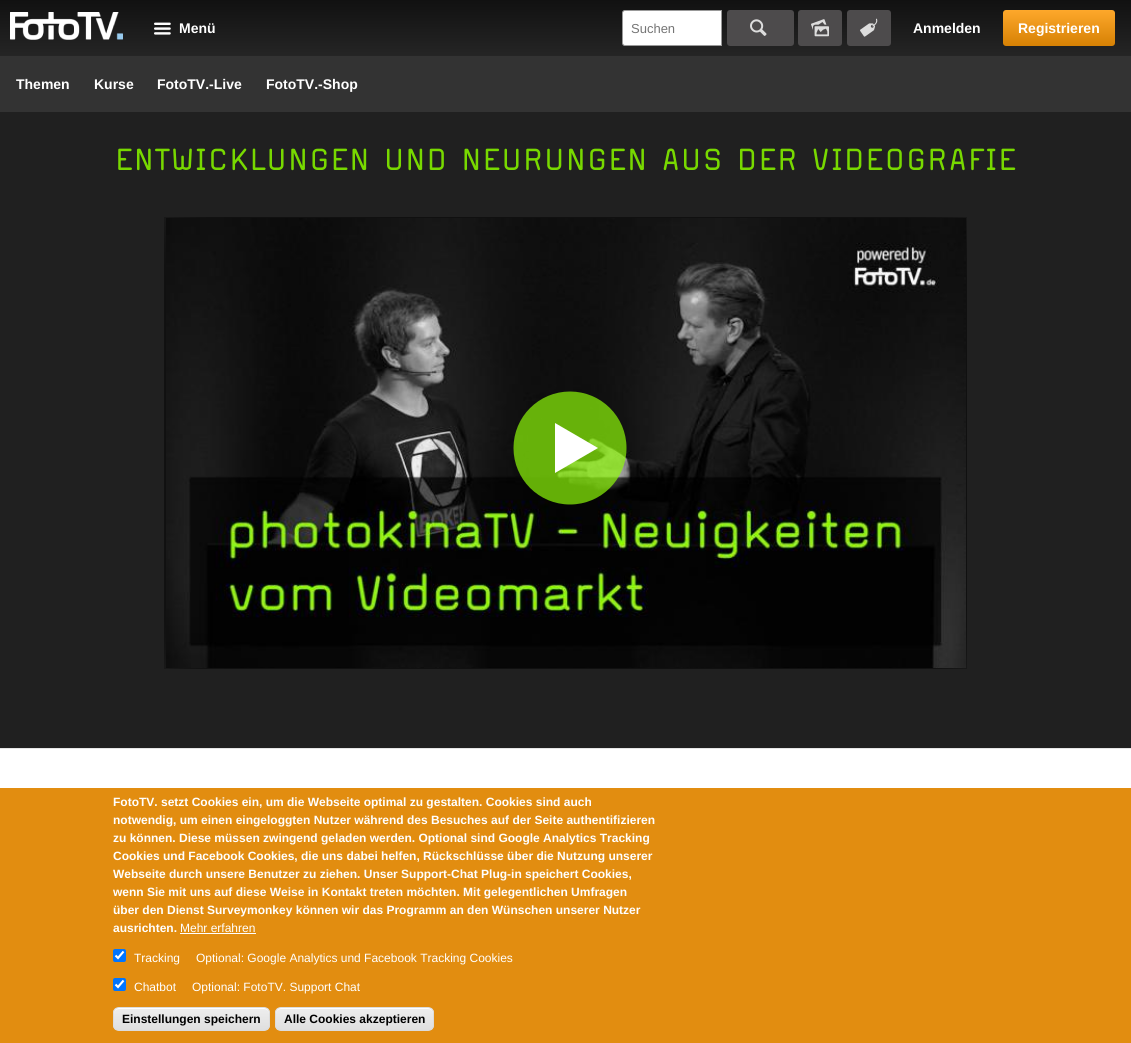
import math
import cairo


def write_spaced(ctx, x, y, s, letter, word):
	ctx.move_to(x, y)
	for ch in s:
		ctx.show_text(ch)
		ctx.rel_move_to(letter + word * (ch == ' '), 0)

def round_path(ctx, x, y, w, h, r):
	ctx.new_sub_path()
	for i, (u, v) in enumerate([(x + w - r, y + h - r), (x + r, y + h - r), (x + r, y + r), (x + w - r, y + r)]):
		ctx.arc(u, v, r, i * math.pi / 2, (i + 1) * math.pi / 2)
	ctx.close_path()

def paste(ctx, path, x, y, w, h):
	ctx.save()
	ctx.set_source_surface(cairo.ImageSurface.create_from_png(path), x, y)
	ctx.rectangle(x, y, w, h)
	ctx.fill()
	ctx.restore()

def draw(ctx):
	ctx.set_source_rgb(1, 1, 1)
	ctx.paint()
	gradient = cairo.LinearGradient(566, 0, 566, 56)
	gradient.add_color_stop_rgba(0, 0.067, 0.067, 0.067, 1)
	gradient.add_color_stop_rgba(1, 0.145, 0.145, 0.145, 1)
	ctx.set_source(gradient)
	ctx.rectangle(0, 0, 1131, 56)
	ctx.fill()
	paste(ctx, 'media/1.png', 10, 12, 113, 28)
	paste(ctx, 'media/2.png', 154, 22, 17, 13)
	ctx.select_font_face('Liberation Sans', cairo.FONT_SLANT_NORMAL, cairo.FONT_WEIGHT_BOLD)
	ctx.set_font_size(14)
	ctx.set_source_rgb(1, 1, 1)
	ctx.move_to(179, 33)
	ctx.show_text('Menü')
	ctx.move_to(913, 33)
	ctx.show_text('Anmelden')
	gradient = cairo.LinearGradient(1059, 10, 1059, 46)
	gradient.add_color_stop_rgba(0, 0.996, 0.659, 0.169, 1)
	gradient.add_color_stop_rgba(1, 0.839, 0.506, 0.016, 1)
	ctx.set_source(gradient)
	round_path(ctx, 1003, 10, 112, 36, 3)
	ctx.fill()
	ctx.set_source_rgb(1, 1, 1)
	ctx.move_to(1018, 33)
	ctx.show_text('Registrieren')
	ctx.new_path()
	ctx.move_to(625, 10.5)
	ctx.line_to(721.5, 10.5)
	ctx.line_to(721.5, 45.5)
	ctx.line_to(625, 45.5)
	ctx.curve_to(623.5, 45.5, 622.5, 44.5, 622.5, 43)
	ctx.line_to(622.5, 13)
	ctx.curve_to(622.5, 11.5, 623.5, 10.5, 625, 10.5)
	ctx.close_path()
	ctx.fill_preserve()
	ctx.set_source_rgb(0.6, 0.6, 0.6)
	ctx.set_line_width(1)
	ctx.stroke()
	ctx.select_font_face('Liberation Sans')
	ctx.set_font_size(13)
	ctx.set_source_rgb(0.459, 0.459, 0.459)
	ctx.move_to(631, 33)
	ctx.show_text('Suchen')
	ctx.set_source_rgb(0.302, 0.294, 0.298)
	round_path(ctx, 727, 10, 67, 36, 3)
	ctx.fill()
	paste(ctx, 'media/3.png', 750, 19, 17, 17)
	round_path(ctx, 798, 10, 44, 36, 3)
	ctx.fill()
	paste(ctx, 'media/4.png', 811, 19, 18, 18)
	round_path(ctx, 847, 10, 44, 36, 3)
	ctx.fill()
	paste(ctx, 'media/5.png', 860, 18, 18, 19)
	ctx.set_source_rgb(0.2, 0.2, 0.2)
	ctx.rectangle(0, 56, 1131, 56)
	ctx.fill()
	ctx.select_font_face('Liberation Sans', cairo.FONT_SLANT_NORMAL, cairo.FONT_WEIGHT_BOLD)
	ctx.set_font_size(14)
	ctx.set_source_rgb(1, 1, 1)
	for x, y, s in [
		(16, 89, 'Themen'),
		(94, 89, 'Kurse'),
		(157, 89, 'FotoTV.-Live'),
		(266, 89, 'FotoTV.-Shop'),
	]:
		ctx.move_to(x, y)
		ctx.show_text(s)
	ctx.set_source_rgb(0.125, 0.125, 0.125)
	ctx.rectangle(0, 112, 1131, 636)
	ctx.fill()
	ctx.set_source_rgb(0.898, 0.898, 0.898)
	ctx.rectangle(0, 748, 1131, 1)
	ctx.fill()
	ctx.select_font_face('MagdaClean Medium')
	ctx.set_font_size(36)
	ctx.set_source_rgb(0.471, 0.851, 0)
	write_spaced(ctx, 115, 170, 'ENTWICKLUNGEN UND NEURUNGEN AUS DER VIDEOGRAFIE', 1.1, 0)
	paste(ctx, 'media/6.png', 164, 217, 803, 452)
	ctx.set_source_rgba(0.553, 0.976, 0.035, 0.7)
	ctx.arc(570, 448, 56.5, 0, 2 * math.pi)
	ctx.fill()
	ctx.set_source_rgb(1, 1, 1)
	ctx.new_path()
	ctx.move_to(555, 423)
	ctx.line_to(598, 448)
	ctx.line_to(555, 473)
	ctx.close_path()
	ctx.fill()
	ctx.set_source_rgb(0.886, 0.553, 0.063)
	ctx.rectangle(0, 788, 1131, 255)
	ctx.fill()
	ctx.select_font_face('Liberation Sans', cairo.FONT_SLANT_NORMAL, cairo.FONT_WEIGHT_BOLD)
	ctx.set_font_size(12)
	ctx.set_source_rgb(1, 1, 1)
	for x, y, s in [
		(113, 806, 'FotoTV. setzt Cookies ein, um die Webseite optimal zu gestalten. Cookies sind auch'),
		(113, 824, 'notwendig, um einen eingeloggten Nutzer während des Besuches auf der Seite authentifizieren'),
		(113, 842, 'zu können. Diese müssen zwingend geladen werden. Optional sind Google Analytics Tracking'),
		(113, 860, 'Cookies und Facebook Cookies, die uns dabei helfen, Rückschlüsse über die Nutzung unserer'),
		(113, 878, 'Webseite durch unsere Benutzer zu ziehen. Unser Support-Chat Plug-in speichert Cookies,'),
		(113, 896, 'wenn Sie mit uns auf diese Weise in Kontakt treten möchten. Mit gelegentlichen Umfragen'),
		(113, 914, 'über den Dienst Surveymonkey können wir das Programm an den Wünschen unserer Nutzer'),
		(113, 932, 'ausrichten.'),
	]:
		ctx.move_to(x, y)
		ctx.show_text(s)
	ctx.select_font_face('Liberation Sans')
	ctx.move_to(180, 932)
	ctx.show_text('Mehr erfahren')
	ctx.rectangle(180, 933, 76, 1)
	ctx.fill()
	ctx.set_source_rgb(0, 0.459, 1)
	round_path(ctx, 113, 949, 13, 13, 2)
	ctx.fill()
	ctx.new_path()
	ctx.move_to(115.5, 955.5)
	ctx.line_to(118, 958)
	ctx.line_to(123.5, 951.5)
	ctx.set_source_rgb(1, 1, 1)
	ctx.set_line_width(2.1)
	ctx.stroke()
	ctx.move_to(134, 962)
	ctx.show_text('Tracking')
	ctx.move_to(196, 962)
	ctx.show_text('Optional: Google Analytics und Facebook Tracking Cookies')
	ctx.set_source_rgb(0, 0.459, 1)
	round_path(ctx, 113, 978, 13, 13, 2)
	ctx.fill()
	ctx.new_path()
	ctx.move_to(115.5, 984.5)
	ctx.line_to(118, 987)
	ctx.line_to(123.5, 980.5)
	ctx.set_source_rgb(1, 1, 1)
	ctx.stroke()
	ctx.move_to(134, 991)
	ctx.show_text('Chatbot')
	ctx.move_to(192, 991)
	ctx.show_text('Optional: FotoTV. Support Chat')
	ctx.save()
	round_path(ctx, 113, 1007, 157, 24, 6)
	ctx.clip()
	gradient = cairo.LinearGradient(192, 1008, 192, 1030)
	gradient.add_color_stop_rgba(0.05, 0.929, 0.929, 0.929, 1)
	gradient.add_color_stop_rgba(1, 0.875, 0.875, 0.875, 1)
	ctx.set_source(gradient)
	ctx.rectangle(113, 1008, 157, 22)
	ctx.fill()
	ctx.restore()
	ctx.new_path()
	ctx.move_to(119, 1009)
	ctx.line_to(264, 1009)
	ctx.curve_to(267, 1009, 269, 1011, 269, 1014)
	ctx.line_to(269, 1013)
	ctx.curve_to(269, 1010, 267, 1008, 264, 1008)
	ctx.line_to(119, 1008)
	ctx.curve_to(116, 1008, 114, 1010, 114, 1013)
	ctx.line_to(114, 1014)
	ctx.curve_to(114, 1011, 116, 1009, 119, 1009)
	ctx.close_path()
	ctx.fill()
	round_path(ctx, 113.5, 1007.5, 156, 23, 5.5)
	ctx.set_source_rgb(0.863, 0.863, 0.863)
	ctx.set_line_width(1)
	ctx.stroke()
	ctx.select_font_face('Liberation Sans', cairo.FONT_SLANT_NORMAL, cairo.FONT_WEIGHT_BOLD)
	ctx.set_source_rgb(0, 0, 0)
	ctx.move_to(122, 1023)
	ctx.show_text('Einstellungen speichern')
	ctx.save()
	round_path(ctx, 275, 1007, 159, 24, 6)
	ctx.clip()
	gradient = cairo.LinearGradient(355, 1008, 355, 1030)
	gradient.add_color_stop_rgba(0.05, 0.929, 0.929, 0.929, 1)
	gradient.add_color_stop_rgba(1, 0.875, 0.875, 0.875, 1)
	ctx.set_source(gradient)
	ctx.rectangle(275, 1008, 159, 22)
	ctx.fill()
	ctx.restore()
	ctx.set_source_rgb(1, 1, 1)
	ctx.new_path()
	ctx.move_to(281, 1009)
	ctx.line_to(428, 1009)
	ctx.curve_to(431, 1009, 433, 1011, 433, 1014)
	ctx.line_to(433, 1013)
	ctx.curve_to(433, 1010, 431, 1008, 428, 1008)
	ctx.line_to(281, 1008)
	ctx.curve_to(278, 1008, 276, 1010, 276, 1013)
	ctx.line_to(276, 1014)
	ctx.curve_to(276, 1011, 278, 1009, 281, 1009)
	ctx.close_path()
	ctx.fill()
	round_path(ctx, 275.5, 1007.5, 158, 23, 5.5)
	ctx.set_source_rgb(0.863, 0.863, 0.863)
	ctx.stroke()
	ctx.set_source_rgb(0, 0, 0)
	ctx.move_to(284, 1023)
	ctx.show_text('Alle Cookies akzeptieren')


surface = cairo.ImageSurface(cairo.FORMAT_RGB24, 1131, 1043)
ctx = cairo.Context(surface)
options = cairo.FontOptions()
options.set_hint_metrics(cairo.HINT_METRICS_OFF)
options.set_hint_style(cairo.HINT_STYLE_NONE)
ctx.set_font_options(options)
ctx.set_miter_limit(4)
draw(ctx)
surface.write_to_png('image.png')
